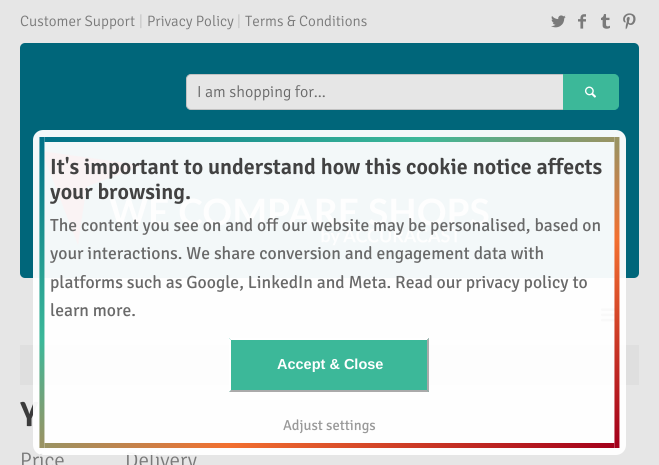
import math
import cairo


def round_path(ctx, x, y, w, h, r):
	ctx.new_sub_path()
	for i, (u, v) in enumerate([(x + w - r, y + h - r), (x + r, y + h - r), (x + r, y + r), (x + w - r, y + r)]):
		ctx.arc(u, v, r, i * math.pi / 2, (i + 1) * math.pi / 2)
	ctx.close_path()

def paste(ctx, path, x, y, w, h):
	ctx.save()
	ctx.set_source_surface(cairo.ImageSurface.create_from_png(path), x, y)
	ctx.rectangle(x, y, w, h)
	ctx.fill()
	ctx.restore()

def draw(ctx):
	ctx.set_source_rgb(0.902, 0.902, 0.902)
	ctx.paint()
	ctx.select_font_face('Signika Light')
	ctx.set_font_size(15)
	ctx.set_source_rgb(0.478, 0.478, 0.478)
	ctx.move_to(20, 26)
	ctx.show_text('Customer Support')
	ctx.set_source_rgb(0.761, 0.761, 0.761)
	ctx.move_to(139, 26)
	ctx.show_text('|')
	ctx.set_source_rgb(0.478, 0.478, 0.478)
	ctx.move_to(147, 26)
	ctx.show_text('Privacy Policy')
	ctx.set_source_rgb(0.761, 0.761, 0.761)
	ctx.move_to(237, 26)
	ctx.show_text('|')
	ctx.set_source_rgb(0.478, 0.478, 0.478)
	ctx.move_to(245, 26)
	ctx.show_text('Terms & Conditions')
	paste(ctx, 'media/1.png', 551, 15, 15, 13)
	paste(ctx, 'media/2.png', 578, 14, 8, 15)
	paste(ctx, 'media/3.png', 601, 14, 9, 15)
	paste(ctx, 'media/4.png', 623, 13, 13, 17)
	ctx.set_source_rgb(0, 0.4, 0.478)
	round_path(ctx, 20, 43, 619, 235, 5)
	ctx.fill()
	ctx.set_source_rgb(0.902, 0.902, 0.902)
	ctx.new_path()
	ctx.move_to(191, 74.5)
	ctx.line_to(563.5, 74.5)
	ctx.line_to(563.5, 109.5)
	ctx.line_to(191, 109.5)
	ctx.curve_to(188.5, 109.5, 186.5, 107.5, 186.5, 105)
	ctx.line_to(186.5, 79)
	ctx.curve_to(186.5, 76.5, 188.5, 74.5, 191, 74.5)
	ctx.close_path()
	ctx.fill_preserve()
	ctx.set_source_rgb(0.761, 0.761, 0.761)
	ctx.set_line_width(1)
	ctx.stroke()
	ctx.set_font_size(16)
	ctx.set_source_rgb(0.412, 0.412, 0.412)
	ctx.move_to(197, 97)
	ctx.show_text('I am shopping for...')
	ctx.set_source_rgb(0.235, 0.722, 0.6)
	ctx.new_path()
	ctx.move_to(563.5, 74.5)
	ctx.line_to(614, 74.5)
	ctx.curve_to(616.5, 74.5, 618.5, 76.5, 618.5, 79)
	ctx.line_to(618.5, 105)
	ctx.curve_to(618.5, 107.5, 616.5, 109.5, 614, 109.5)
	ctx.line_to(563.5, 109.5)
	ctx.close_path()
	ctx.fill_preserve()
	ctx.stroke()
	paste(ctx, 'media/5.png', 585, 86, 11, 12)
	paste(ctx, 'media/6.png', 44, 151, 445, 95)
	paste(ctx, 'media/7.png', 601, 308, 19, 14)
	ctx.set_source_rgb(0.875, 0.875, 0.875)
	ctx.rectangle(20, 345, 619, 40)
	ctx.fill()
	ctx.select_font_face('Signika SemiBold')
	ctx.set_font_size(35)
	ctx.set_source_rgb(0.231, 0.231, 0.231)
	ctx.move_to(20, 426)
	ctx.show_text('Y')
	ctx.select_font_face('Signika Light')
	ctx.set_font_size(21)
	ctx.set_source_rgb(0.478, 0.478, 0.478)
	ctx.move_to(20, 467)
	ctx.show_text('Price')
	ctx.move_to(125, 467)
	ctx.show_text('Delivery')
	ctx.set_source_rgba(1, 1, 1, 0.95)
	round_path(ctx, 33, 130, 593, 325, 10)
	ctx.fill()
	paste(ctx, 'media/8.png', 39, 137, 581, 311)
	ctx.select_font_face('Signika SemiBold')
	ctx.set_font_size(22)
	ctx.set_source_rgb(0.259, 0.259, 0.259)
	ctx.move_to(50, 174)
	ctx.show_text('It\'s important to understand how this cookie notice affects')
	ctx.move_to(50, 199)
	ctx.show_text('your browsing.')
	ctx.select_font_face('Signika')
	ctx.set_font_size(17.6)
	ctx.set_source_rgb(0.412, 0.412, 0.412)
	for x, y, s in [
		(50, 231, 'The content you see on and off our website may be personalised, based on'),
		(50, 259, 'your interactions. We share conversion and engagement data with'),
		(50, 288, 'platforms such as Google, LinkedIn and Meta. Read our privacy policy to'),
		(50, 316, 'learn more.'),
	]:
		ctx.move_to(x, y)
		ctx.show_text(s)
	ctx.set_source_rgb(0.235, 0.722, 0.6)
	ctx.rectangle(229, 338, 200, 54)
	ctx.fill()
	ctx.set_source_rgb(1, 1, 1)
	ctx.new_path()
	ctx.move_to(229, 338)
	ctx.line_to(429, 338)
	ctx.line_to(427, 340)
	ctx.line_to(231, 340)
	ctx.close_path()
	ctx.fill()
	ctx.set_source_rgb(0.667, 0.667, 0.667)
	ctx.new_path()
	ctx.move_to(429, 338)
	ctx.line_to(429, 392)
	ctx.line_to(427, 390)
	ctx.line_to(427, 340)
	ctx.close_path()
	ctx.fill()
	ctx.new_path()
	ctx.move_to(429, 392)
	ctx.line_to(229, 392)
	ctx.line_to(231, 390)
	ctx.line_to(427, 390)
	ctx.close_path()
	ctx.fill()
	ctx.set_source_rgb(1, 1, 1)
	ctx.new_path()
	ctx.move_to(229, 392)
	ctx.line_to(229, 338)
	ctx.line_to(231, 340)
	ctx.line_to(231, 390)
	ctx.close_path()
	ctx.fill()
	ctx.select_font_face('Liberation Sans', cairo.FONT_SLANT_NORMAL, cairo.FONT_WEIGHT_BOLD)
	ctx.set_font_size(14.5)
	ctx.move_to(277, 369)
	ctx.show_text('Accept & Close')
	ctx.select_font_face('Signika')
	ctx.set_source_rgb(0.6, 0.6, 0.6)
	ctx.move_to(283, 430)
	ctx.show_text('Adjust settings')


surface = cairo.ImageSurface(cairo.FORMAT_RGB24, 659, 465)
ctx = cairo.Context(surface)
options = cairo.FontOptions()
options.set_hint_metrics(cairo.HINT_METRICS_OFF)
options.set_hint_style(cairo.HINT_STYLE_NONE)
ctx.set_font_options(options)
ctx.set_miter_limit(4)
draw(ctx)
surface.write_to_png('image.png')
